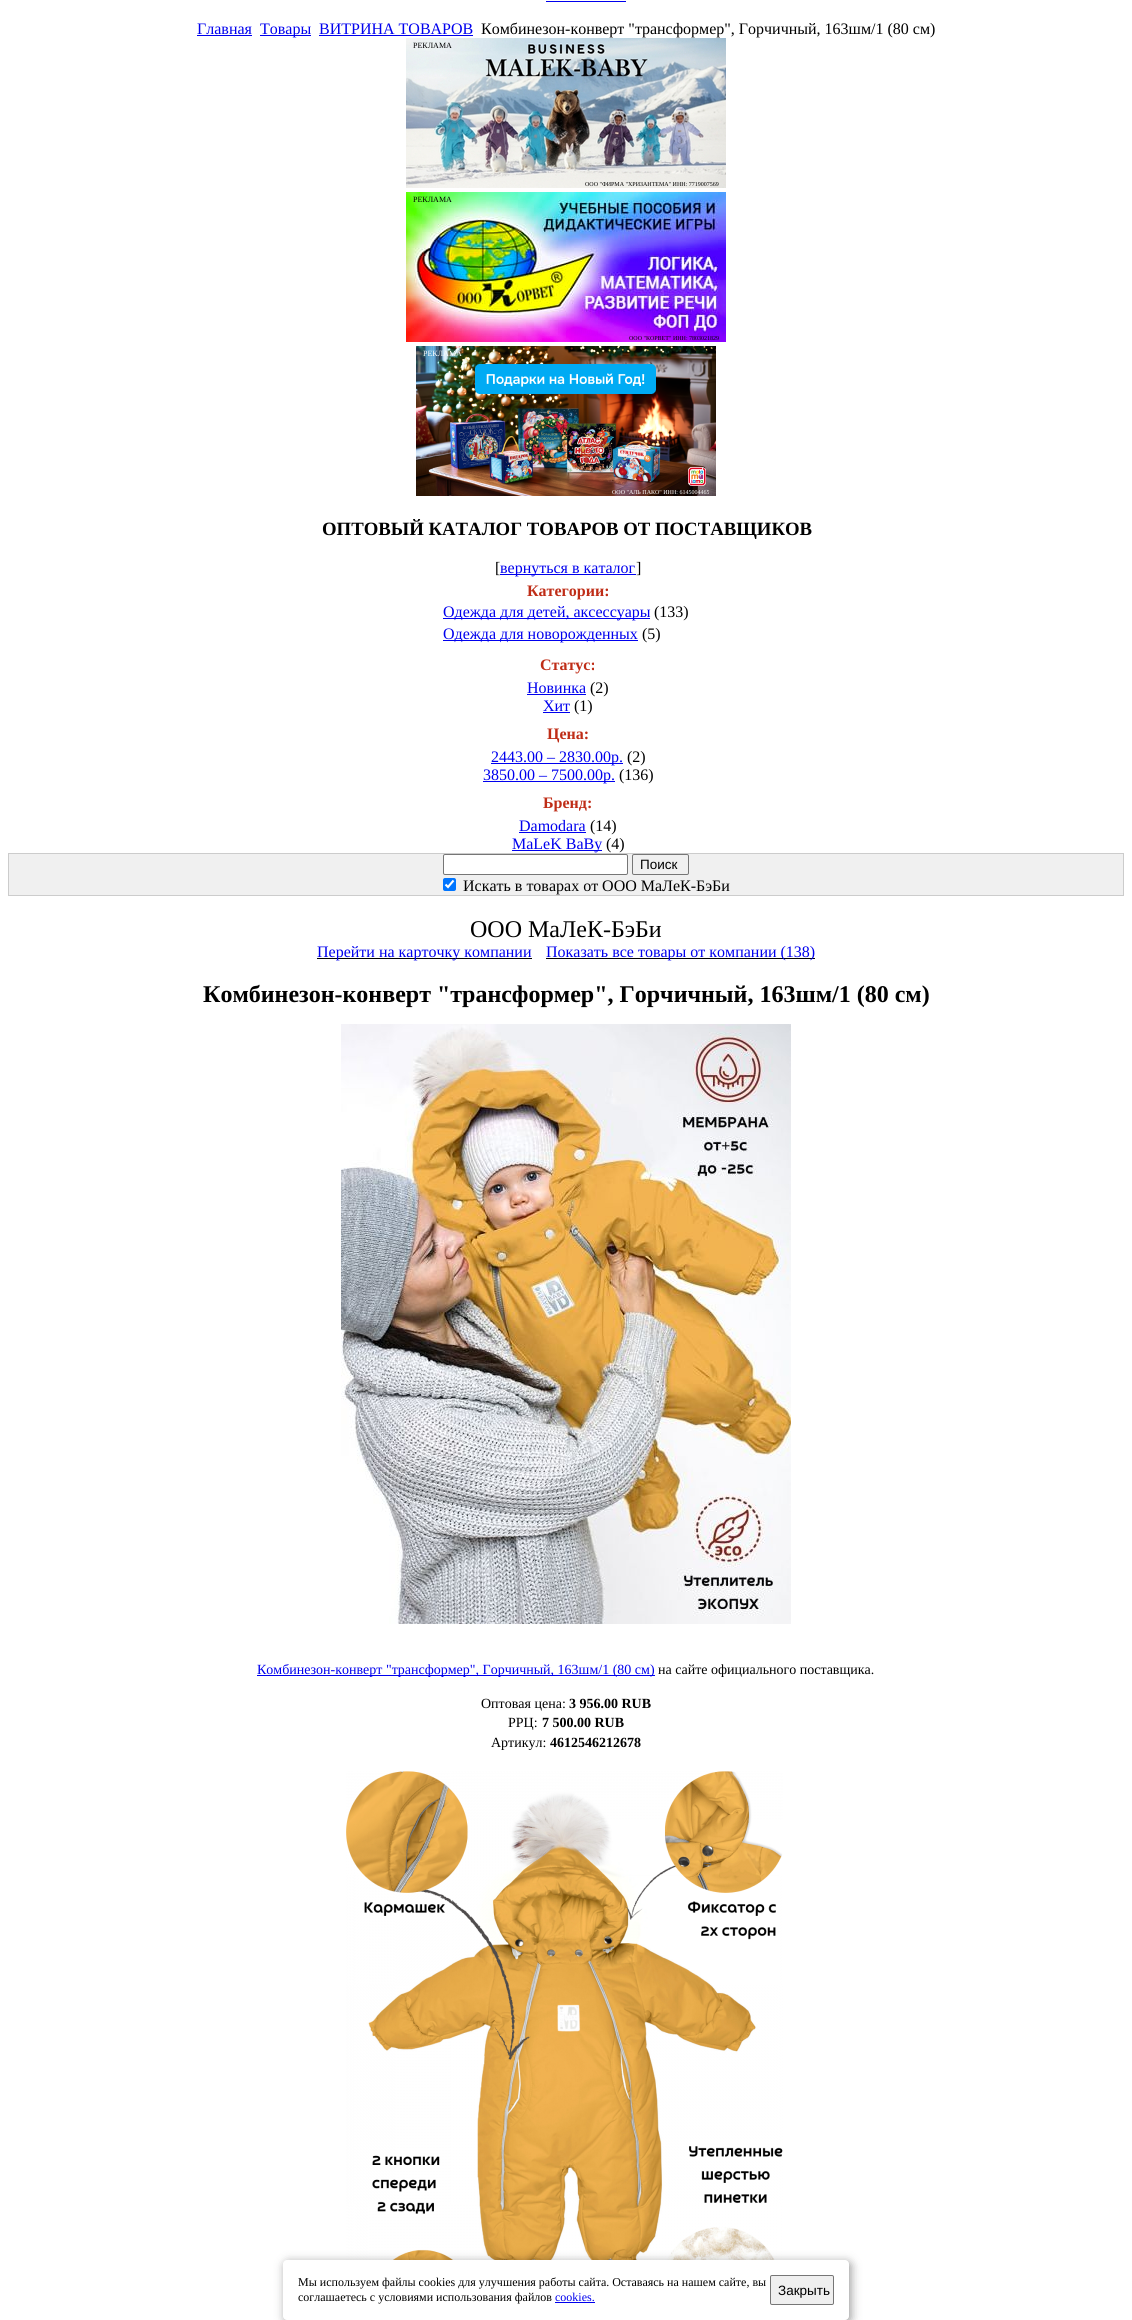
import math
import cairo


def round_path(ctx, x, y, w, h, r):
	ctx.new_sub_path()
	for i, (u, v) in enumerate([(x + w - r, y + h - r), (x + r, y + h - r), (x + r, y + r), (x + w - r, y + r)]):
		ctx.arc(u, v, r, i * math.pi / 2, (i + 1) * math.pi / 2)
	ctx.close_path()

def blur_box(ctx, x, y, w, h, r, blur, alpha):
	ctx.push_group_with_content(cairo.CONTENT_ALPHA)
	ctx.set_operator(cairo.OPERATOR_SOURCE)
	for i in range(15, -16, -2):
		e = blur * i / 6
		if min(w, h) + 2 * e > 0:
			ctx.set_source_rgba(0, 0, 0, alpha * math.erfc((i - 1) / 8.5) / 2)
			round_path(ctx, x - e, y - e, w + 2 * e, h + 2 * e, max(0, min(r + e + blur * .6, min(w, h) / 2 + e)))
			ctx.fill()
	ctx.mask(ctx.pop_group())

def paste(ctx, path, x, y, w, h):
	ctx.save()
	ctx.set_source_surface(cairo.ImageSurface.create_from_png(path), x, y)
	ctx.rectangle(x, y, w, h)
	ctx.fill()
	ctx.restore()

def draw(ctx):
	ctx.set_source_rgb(1, 1, 1)
	ctx.paint()
	ctx.set_source_rgb(0, 0, 0.933)
	ctx.rectangle(546, 1, 80, 1)
	ctx.fill()
	ctx.select_font_face('Liberation Serif')
	ctx.set_font_size(16)
	ctx.move_to(197, 34)
	ctx.show_text('Главная')
	ctx.rectangle(197, 35, 55, 1)
	ctx.fill()
	ctx.rectangle(260, 35, 51, 1)
	ctx.fill()
	ctx.move_to(260, 34)
	ctx.show_text('Товары')
	ctx.move_to(319, 34)
	ctx.show_text('ВИТРИНА ТОВАРОВ')
	ctx.rectangle(319, 35, 154, 1)
	ctx.fill()
	ctx.set_source_rgb(0, 0, 0)
	ctx.move_to(481, 34)
	ctx.show_text('Комбинезон-конверт "трансформер", Горчичный, 163шм/1 (80 см)')
	paste(ctx, 'media/1.png', 406, 38, 320, 150)
	ctx.set_font_size(8)
	ctx.move_to(413, 48)
	ctx.show_text('РЕКЛАМА')
	ctx.set_font_size(6)
	ctx.move_to(585, 186)
	ctx.show_text('ООО "ФИРМА "ХРИЗАНТЕМА" ИНН: 7719007569')
	paste(ctx, 'media/2.png', 406, 192, 320, 150)
	ctx.set_font_size(8)
	ctx.move_to(413, 202)
	ctx.show_text('РЕКЛАМА')
	ctx.set_font_size(6)
	ctx.move_to(629, 340)
	ctx.show_text('ООО "КОРВЕТ" ИНН: 7803021829')
	paste(ctx, 'media/3.png', 416, 346, 300, 150)
	ctx.set_font_size(8)
	ctx.set_source_rgb(1, 1, 1)
	ctx.move_to(423, 356)
	ctx.show_text('РЕКЛАМА')
	ctx.set_font_size(6)
	ctx.move_to(612, 494)
	ctx.show_text('ООО "АЛЬ ПАКО" ИНН: 6145004465')
	ctx.select_font_face('Liberation Serif', cairo.FONT_SLANT_NORMAL, cairo.FONT_WEIGHT_BOLD)
	ctx.set_font_size(18.75)
	ctx.set_source_rgb(0, 0, 0)
	ctx.move_to(322, 535)
	ctx.show_text('ОПТОВЫЙ КАТАЛОГ ТОВАРОВ ОТ ПОСТАВЩИКОВ')
	ctx.select_font_face('Liberation Serif')
	ctx.set_font_size(16)
	ctx.move_to(495, 573)
	ctx.show_text('[')
	ctx.set_source_rgb(0, 0, 0.933)
	ctx.rectangle(500, 574, 136, 1)
	ctx.fill()
	ctx.move_to(500, 573)
	ctx.show_text('вернуться в каталог')
	ctx.set_source_rgb(0, 0, 0)
	ctx.move_to(636, 573)
	ctx.show_text(']')
	ctx.select_font_face('Liberation Serif', cairo.FONT_SLANT_NORMAL, cairo.FONT_WEIGHT_BOLD)
	ctx.set_source_rgb(0.749, 0.176, 0.09)
	ctx.move_to(527, 596)
	ctx.show_text('Категории:')
	ctx.set_source_rgb(0, 0, 0.933)
	ctx.rectangle(443, 618, 207, 1)
	ctx.fill()
	ctx.select_font_face('Liberation Serif')
	ctx.move_to(443, 617)
	ctx.show_text('Одежда для детей, аксессуары')
	ctx.set_source_rgb(0, 0, 0)
	ctx.move_to(654, 617)
	ctx.show_text('(133)')
	ctx.set_source_rgb(0, 0, 0.933)
	ctx.rectangle(443, 640, 195, 1)
	ctx.fill()
	ctx.move_to(443, 639)
	ctx.show_text('Одежда для новорожденных')
	ctx.set_source_rgb(0, 0, 0)
	ctx.move_to(642, 639)
	ctx.show_text('(5)')
	ctx.select_font_face('Liberation Serif', cairo.FONT_SLANT_NORMAL, cairo.FONT_WEIGHT_BOLD)
	ctx.set_source_rgb(0.749, 0.176, 0.09)
	ctx.move_to(540, 670)
	ctx.show_text('Статус:')
	ctx.select_font_face('Liberation Serif')
	ctx.set_source_rgb(0, 0, 0.933)
	ctx.move_to(527, 693)
	ctx.show_text('Новинка')
	ctx.rectangle(527, 694, 59, 1)
	ctx.fill()
	ctx.set_source_rgb(0, 0, 0)
	ctx.move_to(590, 693)
	ctx.show_text('(2)')
	ctx.set_source_rgb(0, 0, 0.933)
	ctx.move_to(543, 711)
	ctx.show_text('Хит')
	ctx.rectangle(543, 712, 27, 1)
	ctx.fill()
	ctx.set_source_rgb(0, 0, 0)
	ctx.move_to(574, 711)
	ctx.show_text('(1)')
	ctx.select_font_face('Liberation Serif', cairo.FONT_SLANT_NORMAL, cairo.FONT_WEIGHT_BOLD)
	ctx.set_source_rgb(0.749, 0.176, 0.09)
	ctx.move_to(547, 739)
	ctx.show_text('Цена:')
	ctx.set_source_rgb(0, 0, 0.933)
	ctx.rectangle(491, 763, 132, 1)
	ctx.fill()
	ctx.select_font_face('Liberation Serif')
	ctx.move_to(491, 762)
	ctx.show_text('2443.00 – 2830.00р.')
	ctx.set_source_rgb(0, 0, 0)
	ctx.move_to(627, 762)
	ctx.show_text('(2)')
	ctx.set_source_rgb(0, 0, 0.933)
	ctx.rectangle(483, 781, 132, 1)
	ctx.fill()
	ctx.move_to(483, 780)
	ctx.show_text('3850.00 – 7500.00р.')
	ctx.set_source_rgb(0, 0, 0)
	ctx.move_to(619, 780)
	ctx.show_text('(136)')
	ctx.select_font_face('Liberation Serif', cairo.FONT_SLANT_NORMAL, cairo.FONT_WEIGHT_BOLD)
	ctx.set_source_rgb(0.749, 0.176, 0.09)
	ctx.move_to(543, 808)
	ctx.show_text('Бренд:')
	ctx.select_font_face('Liberation Serif')
	ctx.set_source_rgb(0, 0, 0.933)
	ctx.move_to(519, 831)
	ctx.show_text('Damodara')
	ctx.rectangle(519, 832, 67, 1)
	ctx.fill()
	ctx.set_source_rgb(0, 0, 0)
	ctx.move_to(590, 831)
	ctx.show_text('(14)')
	ctx.set_source_rgb(0, 0, 0.933)
	ctx.rectangle(512, 850, 90, 1)
	ctx.fill()
	ctx.move_to(512, 849)
	ctx.show_text('MaLeK BaBy')
	ctx.set_source_rgb(0, 0, 0)
	ctx.move_to(606, 849)
	ctx.show_text('(4)')
	ctx.set_source_rgb(0.941, 0.941, 0.941)
	ctx.rectangle(8.5, 853.5, 1115, 42)
	ctx.fill_preserve()
	ctx.set_source_rgb(0.8, 0.8, 0.8)
	ctx.set_line_width(1)
	ctx.stroke()
	ctx.set_source_rgb(1, 1, 1)
	round_path(ctx, 443.5, 854.5, 184, 20, 1.5)
	ctx.fill_preserve()
	ctx.set_source_rgb(0.463, 0.463, 0.463)
	ctx.stroke()
	round_path(ctx, 632.5, 854.5, 56, 20, 1.5)
	ctx.stroke()
	ctx.select_font_face('Liberation Sans')
	ctx.set_font_size(13.5)
	ctx.set_source_rgb(0, 0, 0)
	ctx.move_to(640, 869)
	ctx.show_text('Поиск')
	ctx.set_source_rgb(0, 0.459, 1)
	round_path(ctx, 443, 878, 13, 13, 2)
	ctx.fill()
	ctx.new_path()
	ctx.move_to(445.5, 884.5)
	ctx.line_to(448, 887)
	ctx.line_to(453.5, 880.5)
	ctx.set_source_rgb(1, 1, 1)
	ctx.set_line_width(2.1)
	ctx.stroke()
	ctx.select_font_face('Liberation Serif')
	ctx.set_font_size(16)
	ctx.set_source_rgb(0, 0, 0)
	ctx.move_to(463, 891)
	ctx.show_text('Искать в товарах от ООО МаЛеК-БэБи')
	ctx.set_font_size(24)
	ctx.move_to(470, 937)
	ctx.show_text('ООО МаЛеК-БэБи')
	ctx.rectangle(317, 958, 215, 1)
	ctx.fill()
	ctx.set_font_size(16)
	ctx.set_source_rgb(0, 0, 0.933)
	ctx.move_to(317, 957)
	ctx.show_text('Перейти на карточку компании')
	ctx.set_source_rgb(0, 0, 0)
	ctx.rectangle(546, 958, 269, 1)
	ctx.fill()
	ctx.set_source_rgb(0, 0, 0.933)
	ctx.move_to(546, 957)
	ctx.show_text('Показать все товары от компании (138)')
	ctx.select_font_face('Liberation Serif', cairo.FONT_SLANT_NORMAL, cairo.FONT_WEIGHT_BOLD)
	ctx.set_font_size(24)
	ctx.set_source_rgb(0, 0, 0)
	ctx.move_to(203, 1002)
	ctx.show_text('Комбинезон-конверт "трансформер", Горчичный, 163шм/1 (80 см)')
	paste(ctx, 'media/4.png', 341, 1024, 450, 600)
	ctx.set_source_rgb(0, 0, 0.933)
	ctx.rectangle(257, 1675, 398, 1)
	ctx.fill()
	ctx.select_font_face('Liberation Serif')
	ctx.set_font_size(14)
	ctx.move_to(257, 1674)
	ctx.show_text('Комбинезон-конверт "трансформер", Горчичный, 163шм/1 (80 см)')
	ctx.set_source_rgb(0, 0, 0)
	ctx.move_to(658, 1674)
	ctx.show_text('на сайте официального поставщика.')
	ctx.move_to(481, 1708)
	ctx.show_text('Оптовая цена:')
	ctx.select_font_face('Liberation Serif', cairo.FONT_SLANT_NORMAL, cairo.FONT_WEIGHT_BOLD)
	ctx.move_to(569, 1708)
	ctx.show_text('3 956.00 RUB')
	ctx.select_font_face('Liberation Serif')
	ctx.move_to(508, 1727)
	ctx.show_text('РРЦ:')
	ctx.select_font_face('Liberation Serif', cairo.FONT_SLANT_NORMAL, cairo.FONT_WEIGHT_BOLD)
	ctx.move_to(542, 1727)
	ctx.show_text('7 500.00 RUB')
	ctx.select_font_face('Liberation Serif')
	ctx.move_to(491, 1747)
	ctx.show_text('Артикул:')
	ctx.select_font_face('Liberation Serif', cairo.FONT_SLANT_NORMAL, cairo.FONT_WEIGHT_BOLD)
	ctx.move_to(550, 1747)
	ctx.show_text('4612546212678')
	paste(ctx, 'media/5.png', 346, 1771, 437, 489)
	ctx.set_source_rgb(0, 0, 0)
	blur_box(ctx, 285, 2262, 566, 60, 4, 5, 0.4)
	ctx.set_source_rgb(1, 1, 1)
	round_path(ctx, 283, 2260, 566, 60, 4)
	ctx.fill()
	ctx.select_font_face('Liberation Serif')
	ctx.set_font_size(12)
	ctx.set_source_rgb(0, 0, 0)
	ctx.move_to(298, 2286)
	ctx.show_text('Мы используем файлы cookies для улучшения работы сайта. Оставаясь на нашем сайте, вы')
	ctx.move_to(298, 2301)
	ctx.show_text('соглашаетесь с условиями использования файлов')
	ctx.set_source_rgb(0, 0, 0.933)
	ctx.move_to(555, 2301)
	ctx.show_text('cookies.')
	ctx.rectangle(555, 2302, 40, 1)
	ctx.fill()
	ctx.set_source_rgb(0.937, 0.937, 0.937)
	round_path(ctx, 770.5, 2275.5, 63, 29, 1.5)
	ctx.fill_preserve()
	ctx.set_source_rgb(0.463, 0.463, 0.463)
	ctx.set_line_width(1)
	ctx.stroke()
	ctx.select_font_face('Liberation Sans')
	ctx.set_font_size(13.5)
	ctx.set_source_rgb(0, 0, 0)
	ctx.move_to(778, 2295)
	ctx.show_text('Закрыть')


surface = cairo.ImageSurface(cairo.FORMAT_RGB24, 1132, 2320)
ctx = cairo.Context(surface)
options = cairo.FontOptions()
options.set_hint_metrics(cairo.HINT_METRICS_OFF)
options.set_hint_style(cairo.HINT_STYLE_NONE)
ctx.set_font_options(options)
ctx.set_miter_limit(4)
draw(ctx)
surface.write_to_png('image.png')
